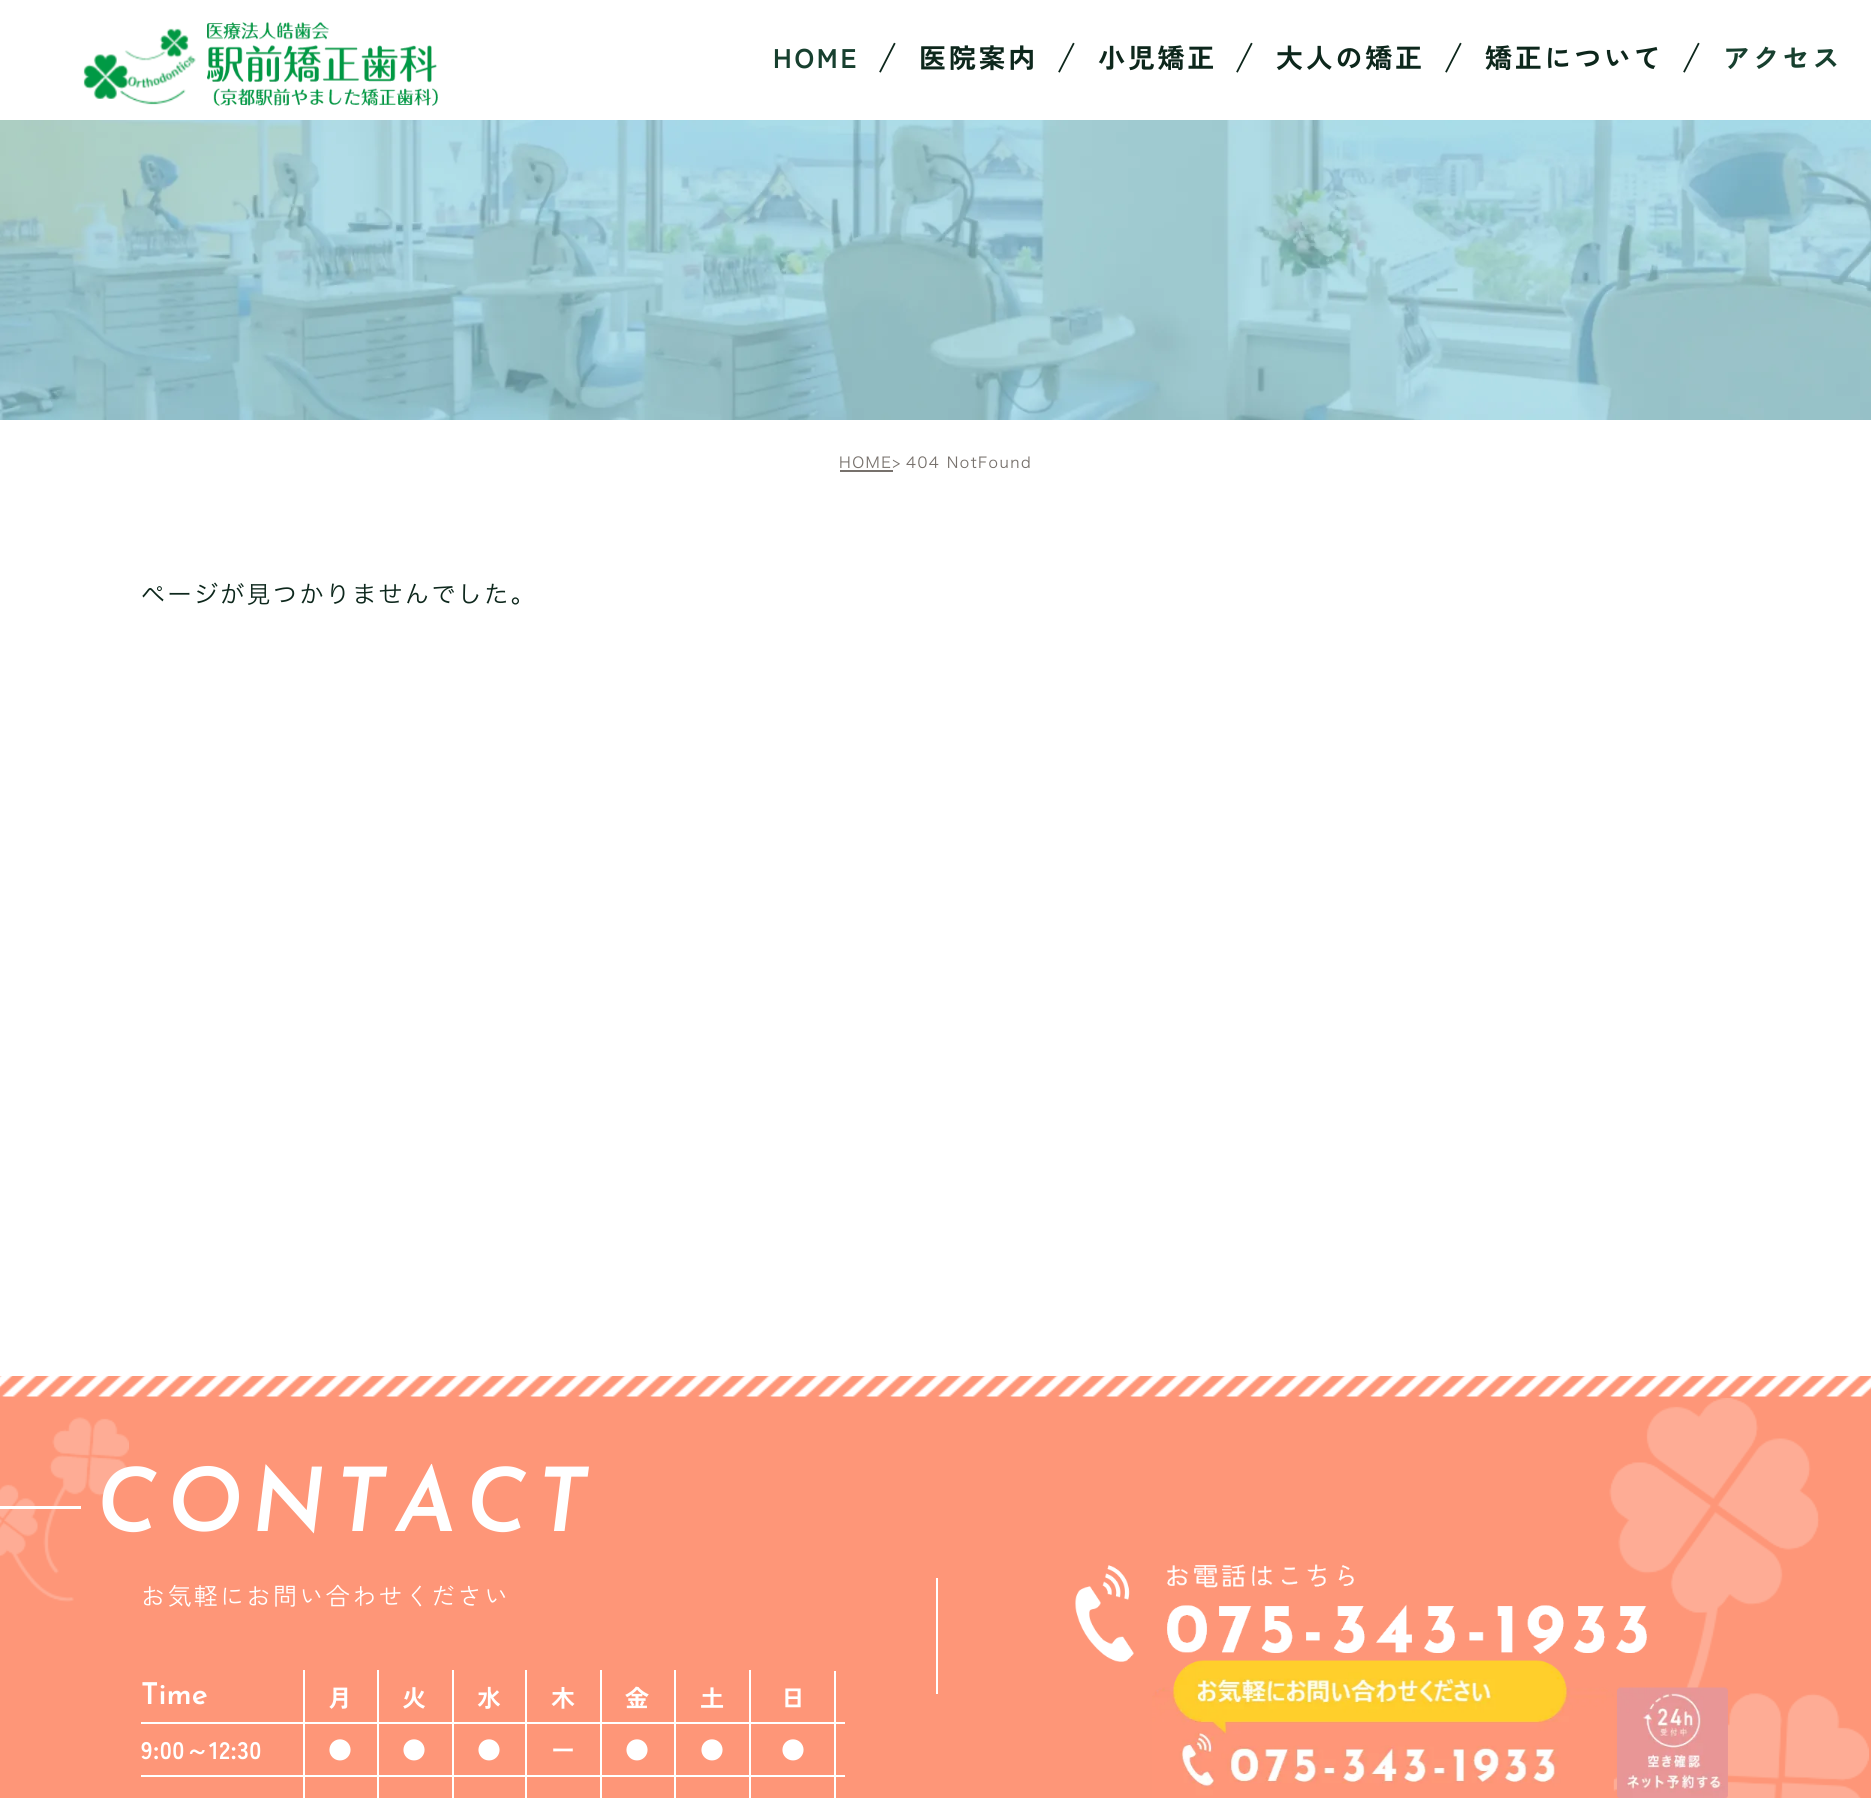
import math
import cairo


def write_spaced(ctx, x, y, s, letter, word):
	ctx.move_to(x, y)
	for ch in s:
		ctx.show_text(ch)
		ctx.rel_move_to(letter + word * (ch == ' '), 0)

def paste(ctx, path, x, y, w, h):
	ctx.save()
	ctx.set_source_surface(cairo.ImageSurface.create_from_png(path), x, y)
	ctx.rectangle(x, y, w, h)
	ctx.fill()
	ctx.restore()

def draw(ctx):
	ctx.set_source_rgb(1, 1, 1)
	ctx.paint()
	paste(ctx, 'media/1.png', 83, 22, 355, 84)
	ctx.select_font_face('Zen Kaku Gothic New', cairo.FONT_SLANT_NORMAL, cairo.FONT_WEIGHT_BOLD)
	ctx.set_font_size(27)
	ctx.set_source_rgb(0.09, 0.251, 0.184)
	write_spaced(ctx, 773, 68, 'HOME', 2.75, 0)
	ctx.select_font_face('Zen Kaku Gothic New')
	ctx.set_font_size(38)
	ctx.set_source_rgb(0.051, 0.153, 0.11)
	write_spaced(ctx, 877, 71, '/', 2.4, 0)
	ctx.select_font_face('Zen Kaku Gothic New', cairo.FONT_SLANT_NORMAL, cairo.FONT_WEIGHT_BOLD)
	ctx.set_font_size(27)
	write_spaced(ctx, 919, 68, '医院案内', 2.75, 0)
	ctx.select_font_face('Zen Kaku Gothic New')
	ctx.set_font_size(38)
	write_spaced(ctx, 1056, 71, '/', 2.4, 0)
	ctx.select_font_face('Zen Kaku Gothic New', cairo.FONT_SLANT_NORMAL, cairo.FONT_WEIGHT_BOLD)
	ctx.set_font_size(27)
	write_spaced(ctx, 1098, 68, '小児矯正', 2.75, 0)
	ctx.select_font_face('Zen Kaku Gothic New')
	ctx.set_font_size(38)
	write_spaced(ctx, 1234, 71, '/', 2.4, 0)
	ctx.select_font_face('Zen Kaku Gothic New', cairo.FONT_SLANT_NORMAL, cairo.FONT_WEIGHT_BOLD)
	ctx.set_font_size(27)
	write_spaced(ctx, 1276, 68, '大人の矯正', 2.75, 0)
	ctx.select_font_face('Zen Kaku Gothic New')
	ctx.set_font_size(38)
	write_spaced(ctx, 1443, 71, '/', 2.4, 0)
	ctx.select_font_face('Zen Kaku Gothic New', cairo.FONT_SLANT_NORMAL, cairo.FONT_WEIGHT_BOLD)
	ctx.set_font_size(27)
	write_spaced(ctx, 1485, 68, '矯正について', 2.75, 0)
	paste(ctx, 'media/2.png', 0, 120, 1871, 300)
	ctx.set_font_size(24)
	ctx.set_source_rgb(0.62, 0.792, 0.812)
	write_spaced(ctx, 1435, 299, '一', 2.4, 0)
	ctx.select_font_face('Zen Kaku Gothic New')
	ctx.set_font_size(38)
	ctx.set_source_rgb(0.051, 0.153, 0.11)
	write_spaced(ctx, 1681, 71, '/', 2.4, 0)
	ctx.select_font_face('Zen Kaku Gothic New', cairo.FONT_SLANT_NORMAL, cairo.FONT_WEIGHT_BOLD)
	ctx.set_font_size(27)
	ctx.set_source_rgb(0.09, 0.251, 0.184)
	write_spaced(ctx, 1723, 68, 'アクセス', 2.75, 0)
	ctx.select_font_face('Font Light')
	ctx.set_font_size(15)
	ctx.set_source_rgb(0.467, 0.443, 0.424)
	write_spaced(ctx, 839, 468, 'HOME>', 1.5, 0)
	ctx.rectangle(840, 470, 53, 2)
	ctx.fill()
	write_spaced(ctx, 906, 468, '404 NotFound', 1.5, 0)
	ctx.set_font_size(24)
	ctx.set_source_rgb(0.051, 0.153, 0.11)
	write_spaced(ctx, 141, 603, 'ページが見つかりませんでした。', 2.4, 0)
	ctx.set_source_rgb(0.996, 0.588, 0.471)
	ctx.rectangle(0, 1376, 1871, 422)
	ctx.fill()
	paste(ctx, 'media/3.png', 0, 1376, 1871, 21)
	paste(ctx, 'media/4.png', 0, 1417, 129, 185)
	ctx.select_font_face('Josefin Sans SemiBold', cairo.FONT_SLANT_ITALIC)
	ctx.set_font_size(88.5)
	ctx.set_source_rgb(1, 1, 1)
	write_spaced(ctx, 96, 1531, 'CONTACT', 8.75, 0)
	ctx.rectangle(0, 1506, 81, 3)
	ctx.fill()
	ctx.select_font_face('Zen Kaku Gothic New')
	ctx.set_font_size(24)
	write_spaced(ctx, 141, 1605, 'お気軽にお問い合わせください', 2.4, 0)
	ctx.rectangle(141, 1722, 704, 2)
	ctx.fill()
	ctx.select_font_face('Josefin Sans SemiBold')
	ctx.set_font_size(30)
	ctx.move_to(141, 1704)
	ctx.show_text('Time')
	ctx.select_font_face('Zen Kaku Gothic New', cairo.FONT_SLANT_NORMAL, cairo.FONT_WEIGHT_BOLD)
	ctx.set_font_size(24)
	for x, y, s in [
		(328, 1707, '月'),
		(402, 1707, '火'),
		(477, 1707, '水'),
		(551, 1707, '木'),
		(625, 1707, '金'),
		(700, 1707, '土'),
		(781, 1707, '日'),
	]:
		ctx.move_to(x, y)
		ctx.show_text(s)
	ctx.rectangle(834, 1671, 2, 51)
	ctx.rectangle(141, 1775, 704, 2)
	ctx.rectangle(303, 1670, 2, 128)
	ctx.rectangle(377, 1670, 2, 128)
	ctx.rectangle(452, 1670, 2, 128)
	ctx.rectangle(525, 1670, 2, 128)
	ctx.rectangle(600, 1670, 2, 128)
	ctx.rectangle(674, 1670, 2, 128)
	ctx.rectangle(749, 1670, 2, 128)
	ctx.rectangle(834, 1776, 2, 22)
	ctx.fill()
	write_spaced(ctx, 141, 1759, '9:00', 0.5, 0)
	ctx.select_font_face('WenQuanYi Zen Hei', cairo.FONT_SLANT_NORMAL, cairo.FONT_WEIGHT_BOLD)
	write_spaced(ctx, 185, 1759, '～', 0.5, 0)
	ctx.select_font_face('Zen Kaku Gothic New', cairo.FONT_SLANT_NORMAL, cairo.FONT_WEIGHT_BOLD)
	write_spaced(ctx, 209, 1759, '12:30', 0.5, 0)
	for x, y, s in [
		(328, 1759, '●'),
		(402, 1759, '●'),
		(477, 1759, '●'),
		(551, 1759, 'ー'),
		(625, 1759, '●'),
		(700, 1759, '●'),
		(781, 1759, '●'),
	]:
		ctx.move_to(x, y)
		ctx.show_text(s)
	ctx.rectangle(834, 1724, 2, 51)
	ctx.fill()
	ctx.rectangle(936, 1578, 2, 116)
	ctx.fill()
	paste(ctx, 'media/6.png', 1586, 1398, 283, 400)
	paste(ctx, 'media/5.png', 1075, 1564, 572, 98)
	paste(ctx, 'media/7.png', 1152, 1660, 462, 138)
	paste(ctx, 'media/8.png', 1617, 1687, 111, 111)


surface = cairo.ImageSurface(cairo.FORMAT_RGB24, 1871, 1798)
ctx = cairo.Context(surface)
options = cairo.FontOptions()
options.set_hint_metrics(cairo.HINT_METRICS_OFF)
options.set_hint_style(cairo.HINT_STYLE_NONE)
ctx.set_font_options(options)
ctx.set_miter_limit(4)
draw(ctx)
surface.write_to_png('image.png')
